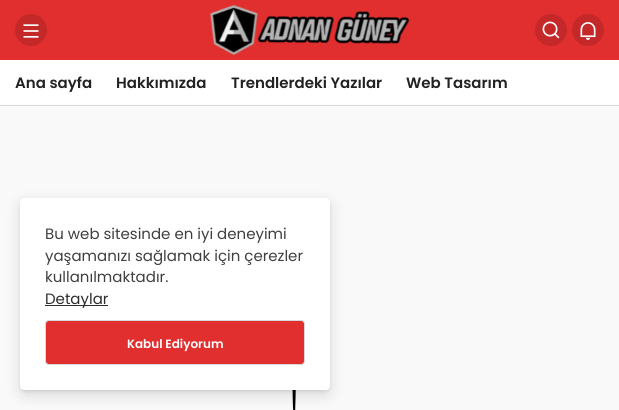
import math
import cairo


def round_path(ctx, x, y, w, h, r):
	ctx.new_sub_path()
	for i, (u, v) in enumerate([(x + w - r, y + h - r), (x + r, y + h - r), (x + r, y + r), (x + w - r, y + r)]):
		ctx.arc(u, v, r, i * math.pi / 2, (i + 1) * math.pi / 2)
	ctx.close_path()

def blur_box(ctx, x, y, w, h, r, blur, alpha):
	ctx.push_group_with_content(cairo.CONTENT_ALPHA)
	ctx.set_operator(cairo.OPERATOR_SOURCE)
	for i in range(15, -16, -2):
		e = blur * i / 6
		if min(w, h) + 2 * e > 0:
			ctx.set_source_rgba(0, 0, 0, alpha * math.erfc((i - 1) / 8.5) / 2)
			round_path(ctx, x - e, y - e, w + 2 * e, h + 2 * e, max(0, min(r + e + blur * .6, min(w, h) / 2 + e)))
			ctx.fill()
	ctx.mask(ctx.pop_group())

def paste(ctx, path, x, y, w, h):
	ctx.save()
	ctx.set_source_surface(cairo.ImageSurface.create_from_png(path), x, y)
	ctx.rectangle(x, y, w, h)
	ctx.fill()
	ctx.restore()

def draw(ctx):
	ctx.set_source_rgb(0.973, 0.973, 0.973)
	ctx.paint()
	ctx.set_source_rgb(0.882, 0.18, 0.18)
	ctx.rectangle(0, 0, 619, 60)
	ctx.fill()
	ctx.set_source_rgb(0.773, 0.157, 0.157)
	ctx.arc(31, 30, 16, 0, 2 * math.pi)
	ctx.fill()
	paste(ctx, 'media/1.png', 23, 24, 16, 14)
	paste(ctx, 'media/2.png', 209, 5, 201, 50)
	ctx.arc(551, 30, 16, 0, 2 * math.pi)
	ctx.fill()
	paste(ctx, 'media/3.png', 542, 21, 18, 18)
	ctx.arc(588, 30, 16, 0, 2 * math.pi)
	ctx.fill()
	paste(ctx, 'media/4.png', 580, 22, 16, 18)
	ctx.set_source_rgb(1, 1, 1)
	ctx.rectangle(0, 60, 619, 45)
	ctx.fill()
	ctx.set_source_rgb(0.835, 0.843, 0.855)
	ctx.rectangle(0, 105, 619, 1)
	ctx.fill()
	ctx.select_font_face('Poppins SemiBold')
	ctx.set_font_size(15)
	ctx.set_source_rgb(0.133, 0.133, 0.133)
	for x, y, s in [
		(15, 88, 'Ana sayfa'),
		(116, 88, 'Hakkımızda'),
		(231, 88, 'Trendlerdeki Yazılar'),
		(406, 88, 'Web Tasarım'),
	]:
		ctx.move_to(x, y)
		ctx.show_text(s)
	paste(ctx, 'media/5.png', 292, 390, 4, 20)
	ctx.set_source_rgb(0, 0, 0)
	blur_box(ctx, 22, 205, 306, 188, 2, 8.5, 0.15)
	blur_box(ctx, 22, 202, 306, 188, 2, 2.5, 0.15)
	ctx.set_source_rgb(1, 1, 1)
	round_path(ctx, 20, 198, 310, 192, 4)
	ctx.fill()
	ctx.select_font_face('Poppins')
	ctx.set_source_rgb(0.247, 0.247, 0.247)
	for x, y, s in [
		(45, 239, 'Bu web sitesinde en iyi deneyimi'),
		(45, 261, 'yaşamanızı sağlamak için çerezler'),
		(45, 282, 'kullanılmaktadır.'),
	]:
		ctx.move_to(x, y)
		ctx.show_text(s)
	ctx.set_source_rgb(0.176, 0.176, 0.176)
	ctx.rectangle(45, 305, 63, 1)
	ctx.fill()
	ctx.move_to(45, 304)
	ctx.show_text('Detaylar')
	ctx.set_source_rgb(0.882, 0.18, 0.18)
	round_path(ctx, 45.5, 320.5, 259, 44, 3.5)
	ctx.fill_preserve()
	ctx.set_source_rgb(0.835, 0.843, 0.855)
	ctx.set_line_width(1)
	ctx.stroke()
	ctx.select_font_face('Poppins SemiBold')
	ctx.set_font_size(12)
	ctx.set_source_rgb(1, 1, 1)
	ctx.move_to(127, 348)
	ctx.show_text('Kabul Ediyorum')


surface = cairo.ImageSurface(cairo.FORMAT_RGB24, 619, 410)
ctx = cairo.Context(surface)
options = cairo.FontOptions()
options.set_hint_metrics(cairo.HINT_METRICS_OFF)
options.set_hint_style(cairo.HINT_STYLE_NONE)
ctx.set_font_options(options)
ctx.set_miter_limit(4)
draw(ctx)
surface.write_to_png('image.png')
